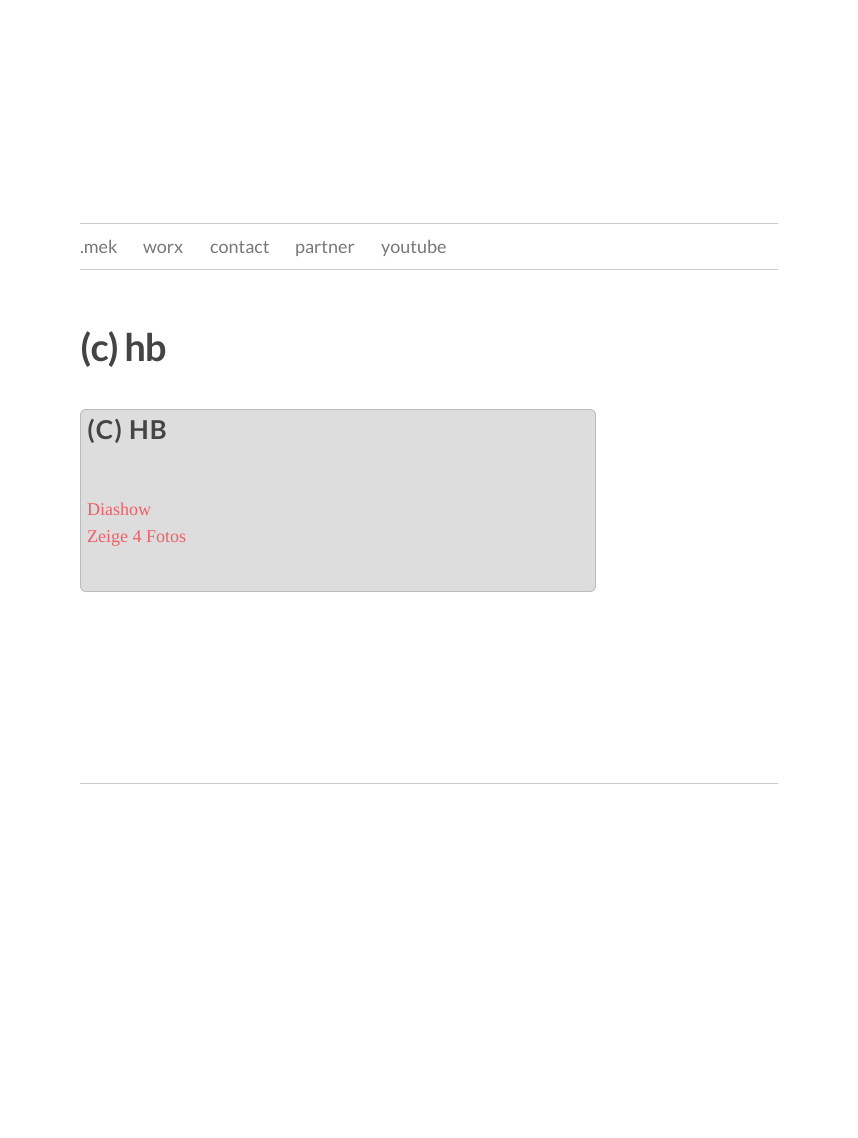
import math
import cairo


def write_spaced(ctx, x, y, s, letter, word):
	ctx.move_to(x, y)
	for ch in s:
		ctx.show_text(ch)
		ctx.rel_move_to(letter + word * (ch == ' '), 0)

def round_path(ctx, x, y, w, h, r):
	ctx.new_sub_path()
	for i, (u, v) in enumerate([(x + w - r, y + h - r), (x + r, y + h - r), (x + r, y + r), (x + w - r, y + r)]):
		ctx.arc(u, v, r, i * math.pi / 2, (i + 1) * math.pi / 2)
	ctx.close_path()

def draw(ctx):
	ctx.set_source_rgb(1, 1, 1)
	ctx.paint()
	ctx.set_source_rgb(0.8, 0.8, 0.8)
	ctx.rectangle(80, 223, 698, 1)
	ctx.fill()
	ctx.rectangle(80, 269, 698, 1)
	ctx.fill()
	ctx.select_font_face('Lato')
	ctx.set_font_size(18)
	ctx.set_source_rgb(0.467, 0.467, 0.467)
	for x, y, s in [
		(80, 253, '.mek'),
		(143, 253, 'worx'),
		(210, 253, 'contact'),
		(295, 253, 'partner'),
		(381, 253, 'youtube'),
	]:
		ctx.move_to(x, y)
		ctx.show_text(s)
	ctx.select_font_face('Lato', cairo.FONT_SLANT_NORMAL, cairo.FONT_WEIGHT_BOLD)
	ctx.set_font_size(38)
	ctx.set_source_rgb(0.267, 0.267, 0.267)
	write_spaced(ctx, 80, 361, '(c) hb', -1, 0)
	ctx.set_source_rgb(0.867, 0.867, 0.867)
	round_path(ctx, 80.5, 409.5, 515, 182, 5.5)
	ctx.fill_preserve()
	ctx.set_source_rgb(0.733, 0.733, 0.733)
	ctx.set_line_width(1)
	ctx.stroke()
	ctx.set_font_size(26)
	ctx.set_source_rgb(0.267, 0.267, 0.267)
	write_spaced(ctx, 87, 439, '(C) HB', 1, 0)
	ctx.select_font_face('Liberation Serif')
	ctx.set_font_size(18)
	ctx.set_source_rgb(0.937, 0.373, 0.412)
	ctx.move_to(87, 515)
	ctx.show_text('Diashow')
	ctx.move_to(87, 542)
	ctx.show_text('Zeige 4 Fotos')
	ctx.set_source_rgb(0.8, 0.8, 0.8)
	ctx.rectangle(80, 783, 698, 1)
	ctx.fill()


surface = cairo.ImageSurface(cairo.FORMAT_RGB24, 858, 1138)
ctx = cairo.Context(surface)
options = cairo.FontOptions()
options.set_hint_metrics(cairo.HINT_METRICS_OFF)
options.set_hint_style(cairo.HINT_STYLE_NONE)
ctx.set_font_options(options)
ctx.set_miter_limit(4)
draw(ctx)
surface.write_to_png('image.png')
